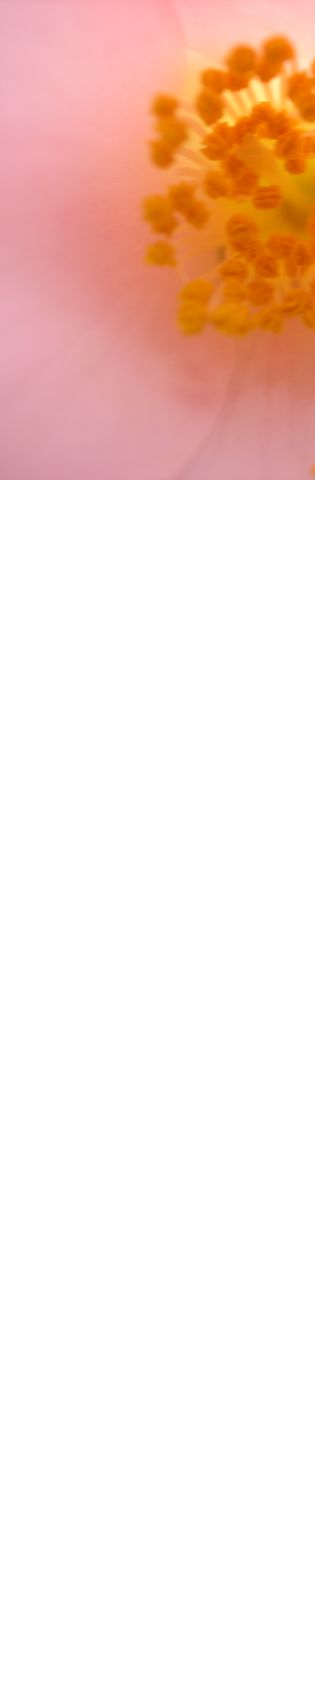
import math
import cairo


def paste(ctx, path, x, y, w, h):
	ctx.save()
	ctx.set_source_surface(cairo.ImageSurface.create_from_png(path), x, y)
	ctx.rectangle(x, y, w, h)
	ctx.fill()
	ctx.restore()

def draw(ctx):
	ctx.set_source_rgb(1, 1, 1)
	ctx.paint()
	paste(ctx, 'media/1.png', 0, 0, 315, 480)


surface = cairo.ImageSurface(cairo.FORMAT_RGB24, 315, 1704)
ctx = cairo.Context(surface)
options = cairo.FontOptions()
options.set_hint_metrics(cairo.HINT_METRICS_OFF)
options.set_hint_style(cairo.HINT_STYLE_NONE)
ctx.set_font_options(options)
ctx.set_miter_limit(4)
draw(ctx)
surface.write_to_png('image.png')
